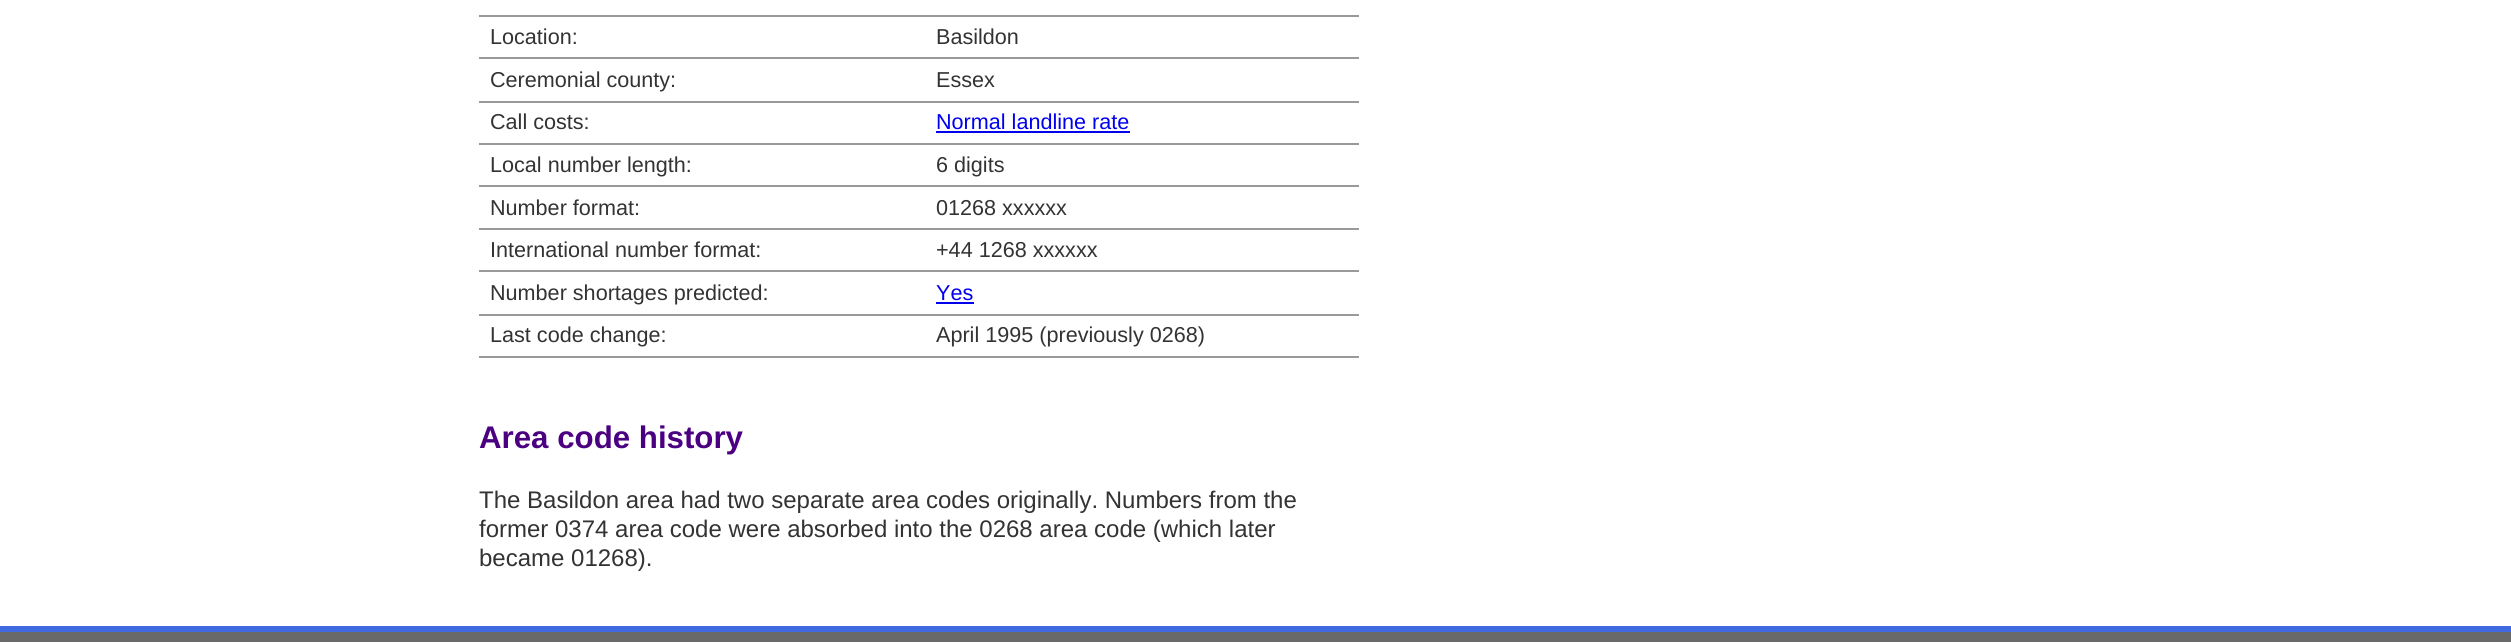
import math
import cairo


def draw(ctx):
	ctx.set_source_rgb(1, 1, 1)
	ctx.paint()
	ctx.set_source_rgb(0.6, 0.6, 0.6)
	ctx.rectangle(479, 15, 880, 2)
	ctx.fill()
	ctx.select_font_face('Liberation Sans')
	ctx.set_font_size(21.6)
	ctx.set_source_rgb(0.2, 0.2, 0.2)
	ctx.move_to(490, 44)
	ctx.show_text('Location:')
	ctx.set_source_rgb(0.6, 0.6, 0.6)
	ctx.rectangle(479, 57, 880, 2)
	ctx.fill()
	ctx.set_source_rgb(0.2, 0.2, 0.2)
	ctx.move_to(936, 44)
	ctx.show_text('Basildon')
	ctx.move_to(490, 87)
	ctx.show_text('Ceremonial county:')
	ctx.set_source_rgb(0.6, 0.6, 0.6)
	ctx.rectangle(479, 101, 880, 2)
	ctx.fill()
	ctx.set_source_rgb(0.2, 0.2, 0.2)
	ctx.move_to(936, 87)
	ctx.show_text('Essex')
	ctx.move_to(490, 129)
	ctx.show_text('Call costs:')
	ctx.set_source_rgb(0.6, 0.6, 0.6)
	ctx.rectangle(479, 143, 880, 2)
	ctx.fill()
	ctx.set_source_rgb(0, 0, 0.933)
	ctx.move_to(936, 129)
	ctx.show_text('Normal landline rate')
	ctx.rectangle(936, 131, 194, 2)
	ctx.fill()
	ctx.set_source_rgb(0.2, 0.2, 0.2)
	ctx.move_to(490, 172)
	ctx.show_text('Local number length:')
	ctx.set_source_rgb(0.6, 0.6, 0.6)
	ctx.rectangle(479, 185, 880, 2)
	ctx.fill()
	ctx.set_source_rgb(0.2, 0.2, 0.2)
	ctx.move_to(936, 172)
	ctx.show_text('6 digits')
	ctx.move_to(490, 215)
	ctx.show_text('Number format:')
	ctx.set_source_rgb(0.6, 0.6, 0.6)
	ctx.rectangle(479, 228, 880, 2)
	ctx.fill()
	ctx.set_source_rgb(0.2, 0.2, 0.2)
	ctx.move_to(936, 215)
	ctx.show_text('01268 xxxxxx')
	ctx.move_to(490, 257)
	ctx.show_text('International number format:')
	ctx.set_source_rgb(0.6, 0.6, 0.6)
	ctx.rectangle(479, 270, 880, 2)
	ctx.fill()
	ctx.set_source_rgb(0.2, 0.2, 0.2)
	ctx.move_to(936, 257)
	ctx.show_text('+44 1268 xxxxxx')
	ctx.move_to(490, 300)
	ctx.show_text('Number shortages predicted:')
	ctx.set_source_rgb(0.6, 0.6, 0.6)
	ctx.rectangle(479, 314, 880, 2)
	ctx.fill()
	ctx.set_source_rgb(0, 0, 0.933)
	ctx.move_to(936, 300)
	ctx.show_text('Yes')
	ctx.rectangle(936, 302, 38, 2)
	ctx.fill()
	ctx.set_source_rgb(0.2, 0.2, 0.2)
	ctx.move_to(490, 342)
	ctx.show_text('Last code change:')
	ctx.set_source_rgb(0.6, 0.6, 0.6)
	ctx.rectangle(479, 356, 880, 2)
	ctx.fill()
	ctx.set_source_rgb(0.2, 0.2, 0.2)
	ctx.move_to(936, 342)
	ctx.show_text('April 1995 (previously 0268)')
	ctx.select_font_face('Liberation Sans', cairo.FONT_SLANT_NORMAL, cairo.FONT_WEIGHT_BOLD)
	ctx.set_font_size(31.25)
	ctx.set_source_rgb(0.294, 0, 0.51)
	ctx.move_to(479, 448)
	ctx.show_text('Area code history')
	ctx.select_font_face('Liberation Sans')
	ctx.set_font_size(24)
	ctx.set_source_rgb(0.2, 0.2, 0.2)
	for x, y, s in [
		(479, 508, 'The Basildon area had two separate area codes originally. Numbers from the'),
		(479, 537, 'former 0374 area code were absorbed into the 0268 area code (which later'),
		(479, 566, 'became 01268).'),
	]:
		ctx.move_to(x, y)
		ctx.show_text(s)
	ctx.set_source_rgb(0.412, 0.412, 0.412)
	ctx.rectangle(0, 632, 2511, 10)
	ctx.fill()
	ctx.set_source_rgb(0.255, 0.412, 0.882)
	ctx.rectangle(0, 626, 2511, 6)
	ctx.fill()


surface = cairo.ImageSurface(cairo.FORMAT_RGB24, 2511, 642)
ctx = cairo.Context(surface)
options = cairo.FontOptions()
options.set_hint_metrics(cairo.HINT_METRICS_OFF)
options.set_hint_style(cairo.HINT_STYLE_NONE)
ctx.set_font_options(options)
ctx.set_miter_limit(4)
draw(ctx)
surface.write_to_png('image.png')
